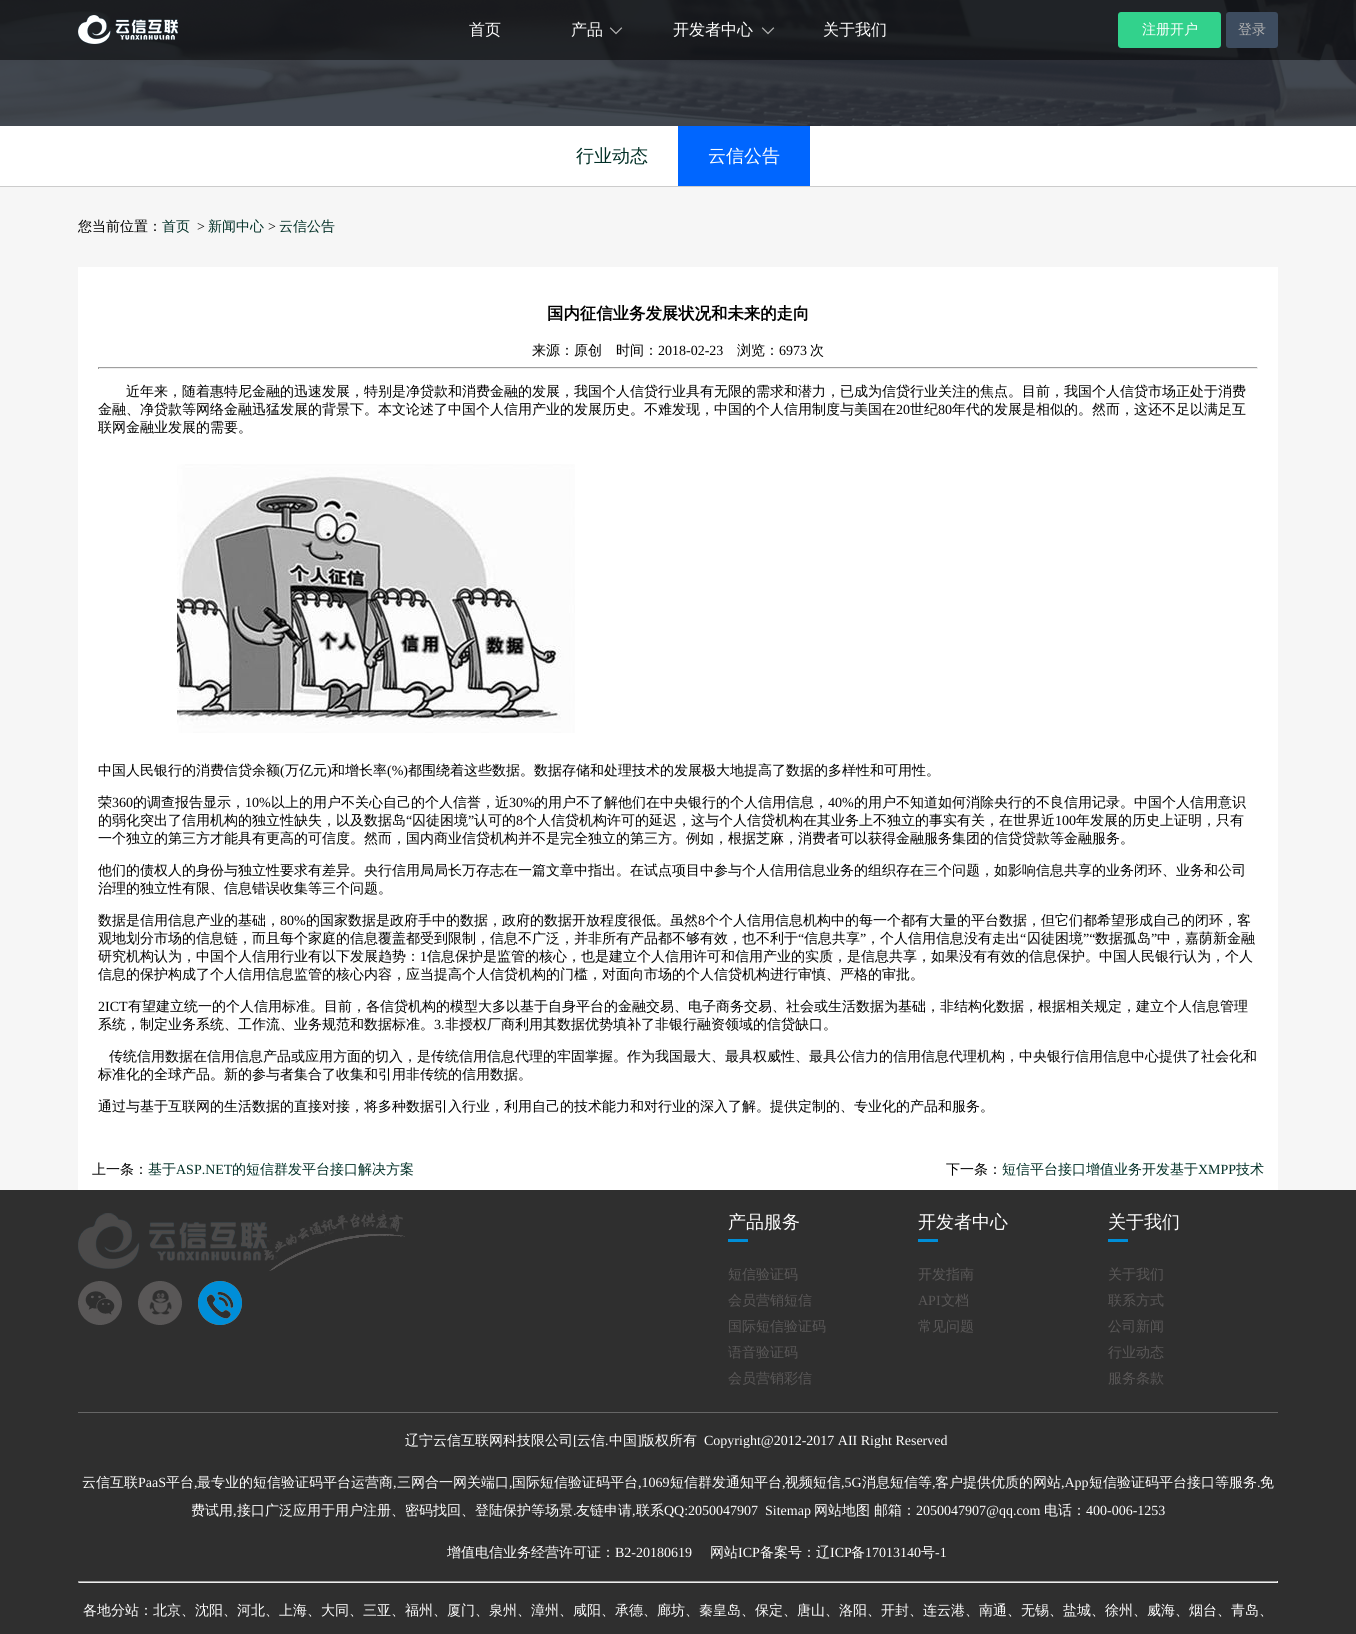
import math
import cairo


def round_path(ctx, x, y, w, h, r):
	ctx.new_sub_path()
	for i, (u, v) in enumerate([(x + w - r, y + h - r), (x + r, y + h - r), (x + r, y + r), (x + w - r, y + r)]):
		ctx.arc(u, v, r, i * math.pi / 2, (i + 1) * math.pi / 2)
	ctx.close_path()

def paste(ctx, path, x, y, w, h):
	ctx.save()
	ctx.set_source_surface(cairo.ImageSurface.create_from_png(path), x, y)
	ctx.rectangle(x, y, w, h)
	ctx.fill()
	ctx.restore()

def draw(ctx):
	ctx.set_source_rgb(1, 1, 1)
	ctx.paint()
	paste(ctx, 'media/4.png', 0, 0, 1356, 126)
	ctx.set_source_rgba(0, 0, 0, 0.5)
	ctx.rectangle(0, 0, 1356, 60)
	ctx.fill()
	paste(ctx, 'media/1.png', 78, 15, 100, 29)
	ctx.select_font_face('WenQuanYi Zen Hei Medium')
	ctx.set_font_size(16)
	ctx.set_source_rgb(1, 1, 1)
	ctx.move_to(469, 35)
	ctx.show_text('首页')
	paste(ctx, 'media/2.png', 609, 27, 14, 8)
	ctx.move_to(571, 35)
	ctx.show_text('产品')
	paste(ctx, 'media/3.png', 761, 27, 14, 8)
	ctx.move_to(673, 35)
	ctx.show_text('开发者中心')
	ctx.move_to(823, 35)
	ctx.show_text('关于我们')
	ctx.set_source_rgb(0.196, 0.824, 0.549)
	round_path(ctx, 1118, 12, 103, 36, 3)
	ctx.fill()
	ctx.set_font_size(14)
	ctx.set_source_rgb(1, 1, 1)
	ctx.move_to(1142, 34)
	ctx.show_text('注册开户')
	ctx.set_source_rgb(0.239, 0.298, 0.373)
	round_path(ctx, 1226, 12, 52, 36, 3)
	ctx.fill()
	ctx.set_source_rgb(0.694, 0.694, 0.694)
	ctx.move_to(1238, 34)
	ctx.show_text('登录')
	ctx.set_source_rgb(0.8, 0.8, 0.8)
	ctx.rectangle(0, 186, 1356, 1)
	ctx.fill()
	ctx.set_font_size(18)
	ctx.set_source_rgb(0.004, 0.184, 0.149)
	ctx.move_to(576, 162)
	ctx.show_text('行业动态')
	ctx.set_source_rgb(0, 0.4, 1)
	ctx.rectangle(678, 126, 132, 60)
	ctx.fill()
	ctx.set_source_rgb(1, 1, 1)
	ctx.move_to(708, 162)
	ctx.show_text('云信公告')
	ctx.set_source_rgb(0.961, 0.961, 0.961)
	ctx.rectangle(0, 187, 1356, 1003)
	ctx.fill()
	ctx.set_font_size(14)
	ctx.set_source_rgb(0, 0, 0)
	ctx.move_to(78, 231)
	ctx.show_text('您当前位置：')
	ctx.set_source_rgb(0.004, 0.184, 0.149)
	ctx.move_to(162, 231)
	ctx.show_text('首页')
	ctx.select_font_face('Liberation Serif')
	ctx.set_source_rgb(0, 0, 0)
	ctx.move_to(197, 231)
	ctx.show_text('>')
	ctx.select_font_face('WenQuanYi Zen Hei Medium')
	ctx.set_source_rgb(0.004, 0.184, 0.149)
	ctx.move_to(208, 231)
	ctx.show_text('新闻中心')
	ctx.select_font_face('Liberation Serif')
	ctx.set_source_rgb(0, 0, 0)
	ctx.move_to(268, 231)
	ctx.show_text('>')
	ctx.select_font_face('WenQuanYi Zen Hei Medium')
	ctx.set_source_rgb(0.004, 0.184, 0.149)
	ctx.move_to(279, 231)
	ctx.show_text('云信公告')
	ctx.set_source_rgb(1, 1, 1)
	ctx.rectangle(78, 267, 1200, 883)
	ctx.fill()
	ctx.select_font_face('WenQuanYi Zen Hei', cairo.FONT_SLANT_NORMAL, cairo.FONT_WEIGHT_BOLD)
	ctx.set_font_size(16.4)
	ctx.set_source_rgb(0, 0, 0)
	ctx.move_to(547, 319)
	ctx.show_text('国内征信业务发展状况和未来的走向')
	ctx.select_font_face('WenQuanYi Zen Hei Medium')
	ctx.set_font_size(14)
	ctx.move_to(532, 355)
	ctx.show_text('来源：原创')
	ctx.move_to(616, 355)
	ctx.show_text('时间：')
	ctx.select_font_face('Liberation Serif')
	ctx.move_to(658, 355)
	ctx.show_text('2018-02-23')
	ctx.select_font_face('WenQuanYi Zen Hei Medium')
	ctx.move_to(737, 355)
	ctx.show_text('浏览：')
	ctx.select_font_face('Liberation Serif')
	ctx.move_to(779, 355)
	ctx.show_text('6973')
	ctx.select_font_face('WenQuanYi Zen Hei Medium')
	ctx.move_to(810, 355)
	ctx.show_text('次')
	ctx.set_source_rgb(0.624, 0.624, 0.624)
	ctx.rectangle(98, 367, 1160, 1)
	ctx.fill()
	ctx.set_source_rgb(0.933, 0.933, 0.933)
	ctx.rectangle(1257, 367, 1, 2)
	ctx.rectangle(98, 368, 1160, 1)
	ctx.fill()
	ctx.set_source_rgb(0.624, 0.624, 0.624)
	ctx.rectangle(98, 367, 1, 2)
	ctx.fill()
	ctx.set_source_rgb(0, 0, 0)
	ctx.move_to(126, 396)
	ctx.show_text('近年来，随着惠特尼金融的迅速发展，特别是净贷款和消费金融的发展，我国个人信贷行业具有无限的需求和潜力，已成为信贷行业关注的焦点。目前，我国个人信贷市场正处于消费')
	ctx.move_to(98, 414)
	ctx.show_text('金融、净贷款等网络金融迅猛发展的背景下。本文论述了中国个人信用产业的发展历史。不难发现，中国的个人信用制度与美国在')
	ctx.select_font_face('Liberation Serif')
	ctx.move_to(896, 414)
	ctx.show_text('20')
	ctx.select_font_face('WenQuanYi Zen Hei Medium')
	ctx.move_to(910, 414)
	ctx.show_text('世纪')
	ctx.select_font_face('Liberation Serif')
	ctx.move_to(938, 414)
	ctx.show_text('80')
	ctx.select_font_face('WenQuanYi Zen Hei Medium')
	ctx.move_to(952, 414)
	ctx.show_text('年代的发展是相似的。然而，这还不足以满足互')
	ctx.move_to(98, 432)
	ctx.show_text('联网金融业发展的需要。')
	paste(ctx, 'media/5.png', 177, 464, 398, 269)
	ctx.move_to(98, 775)
	ctx.show_text('中国人民银行的消费信贷余额')
	ctx.select_font_face('Liberation Serif')
	ctx.move_to(280, 775)
	ctx.show_text('(')
	ctx.select_font_face('WenQuanYi Zen Hei Medium')
	ctx.move_to(285, 775)
	ctx.show_text('万亿元')
	ctx.select_font_face('Liberation Serif')
	ctx.move_to(327, 775)
	ctx.show_text(')')
	ctx.select_font_face('WenQuanYi Zen Hei Medium')
	ctx.move_to(331, 775)
	ctx.show_text('和增长率')
	ctx.select_font_face('Liberation Serif')
	ctx.move_to(387, 775)
	ctx.show_text('(%)')
	ctx.select_font_face('WenQuanYi Zen Hei Medium')
	ctx.move_to(408, 775)
	ctx.show_text('都围绕着这些数据。数据存储和处理技术的发展极大地提高了数据的多样性和可用性。')
	ctx.move_to(98, 807)
	ctx.show_text('荣')
	ctx.select_font_face('Liberation Serif')
	ctx.move_to(112, 807)
	ctx.show_text('360')
	ctx.select_font_face('WenQuanYi Zen Hei Medium')
	ctx.move_to(133, 807)
	ctx.show_text('的调查报告显示，')
	ctx.select_font_face('Liberation Serif')
	ctx.move_to(245, 807)
	ctx.show_text('10%')
	ctx.select_font_face('WenQuanYi Zen Hei Medium')
	ctx.move_to(271, 807)
	ctx.show_text('以上的用户不关心自己的个人信誉，近')
	ctx.select_font_face('Liberation Serif')
	ctx.move_to(509, 807)
	ctx.show_text('30%')
	ctx.select_font_face('WenQuanYi Zen Hei Medium')
	ctx.move_to(534, 807)
	ctx.show_text('的用户不了解他们在中央银行的个人信用信息，')
	ctx.select_font_face('Liberation Serif')
	ctx.move_to(828, 807)
	ctx.show_text('40%')
	ctx.select_font_face('WenQuanYi Zen Hei Medium')
	ctx.move_to(854, 807)
	ctx.show_text('的用户不知道如何消除央行的不良信用记录。中国个人信用意识')
	ctx.move_to(98, 825)
	ctx.show_text('的弱化突出了信用机构的独立性缺失，以及数据岛')
	ctx.select_font_face('Liberation Serif')
	ctx.move_to(406, 825)
	ctx.show_text('“')
	ctx.select_font_face('WenQuanYi Zen Hei Medium')
	ctx.move_to(412, 825)
	ctx.show_text('囚徒困境')
	ctx.select_font_face('Liberation Serif')
	ctx.move_to(468, 825)
	ctx.show_text('”')
	ctx.select_font_face('WenQuanYi Zen Hei Medium')
	ctx.move_to(474, 825)
	ctx.show_text('认可的')
	ctx.select_font_face('Liberation Serif')
	ctx.move_to(516, 825)
	ctx.show_text('8')
	ctx.select_font_face('WenQuanYi Zen Hei Medium')
	ctx.move_to(523, 825)
	ctx.show_text('个人信贷机构许可的延迟，这与个人信贷机构在其业务上不独立的事实有关，在世界近')
	ctx.select_font_face('Liberation Serif')
	ctx.move_to(1055, 825)
	ctx.show_text('100')
	ctx.select_font_face('WenQuanYi Zen Hei Medium')
	for x, y, s in [
		(1076, 825, '年发展的历史上证明，只有'),
		(98, 843, '一个独立的第三方才能具有更高的可信度。然而，国内商业信贷机构并不是完全独立的第三方。例如，根据芝麻，消费者可以获得金融服务集团的信贷贷款等金融服务。'),
		(98, 875, '他们的债权人的身份与独立性要求有差异。央行信用局局长万存志在一篇文章中指出。在试点项目中参与个人信用信息业务的组织存在三个问题，如影响信息共享的业务闭环、业务和公司'),
		(98, 893, '治理的独立性有限、信息错误收集等三个问题。'),
		(98, 925, '数据是信用信息产业的基础，'),
	]:
		ctx.move_to(x, y)
		ctx.show_text(s)
	ctx.select_font_face('Liberation Serif')
	ctx.move_to(280, 925)
	ctx.show_text('80%')
	ctx.select_font_face('WenQuanYi Zen Hei Medium')
	ctx.move_to(306, 925)
	ctx.show_text('的国家数据是政府手中的数据，政府的数据开放程度很低。虽然')
	ctx.select_font_face('Liberation Serif')
	ctx.move_to(698, 925)
	ctx.show_text('8')
	ctx.select_font_face('WenQuanYi Zen Hei Medium')
	ctx.move_to(705, 925)
	ctx.show_text('个个人信用信息机构中的每一个都有大量的平台数据，但它们都希望形成自己的闭环，客')
	ctx.move_to(98, 943)
	ctx.show_text('观地划分市场的信息链，而且每个家庭的信息覆盖都受到限制，信息不广泛，并非所有产品都不够有效，也不利于')
	ctx.select_font_face('Liberation Serif')
	ctx.move_to(798, 943)
	ctx.show_text('“')
	ctx.select_font_face('WenQuanYi Zen Hei Medium')
	ctx.move_to(804, 943)
	ctx.show_text('信息共享')
	ctx.select_font_face('Liberation Serif')
	ctx.move_to(860, 943)
	ctx.show_text('”')
	ctx.select_font_face('WenQuanYi Zen Hei Medium')
	ctx.move_to(866, 943)
	ctx.show_text('，个人信用信息没有走出')
	ctx.select_font_face('Liberation Serif')
	ctx.move_to(1020, 943)
	ctx.show_text('“')
	ctx.select_font_face('WenQuanYi Zen Hei Medium')
	ctx.move_to(1027, 943)
	ctx.show_text('囚徒困境')
	ctx.select_font_face('Liberation Serif')
	ctx.move_to(1083, 943)
	ctx.show_text('”“')
	ctx.select_font_face('WenQuanYi Zen Hei Medium')
	ctx.move_to(1095, 943)
	ctx.show_text('数据孤岛')
	ctx.select_font_face('Liberation Serif')
	ctx.move_to(1151, 943)
	ctx.show_text('”')
	ctx.select_font_face('WenQuanYi Zen Hei Medium')
	ctx.move_to(1157, 943)
	ctx.show_text('中，嘉荫新金融')
	ctx.move_to(98, 961)
	ctx.show_text('研究机构认为，中国个人信用行业有以下发展趋势：')
	ctx.select_font_face('Liberation Serif')
	ctx.move_to(420, 961)
	ctx.show_text('1')
	ctx.select_font_face('WenQuanYi Zen Hei Medium')
	ctx.move_to(427, 961)
	ctx.show_text('信息保护是监管的核心，也是建立个人信用许可和信用产业的实质，是信息共享，如果没有有效的信息保护。中国人民银行认为，个人')
	ctx.move_to(98, 979)
	ctx.show_text('信息的保护构成了个人信用信息监管的核心内容，应当提高个人信贷机构的门槛，对面向市场的个人信贷机构进行审慎、严格的审批。')
	ctx.select_font_face('Liberation Serif')
	ctx.move_to(98, 1011)
	ctx.show_text('2ICT')
	ctx.select_font_face('WenQuanYi Zen Hei Medium')
	ctx.move_to(128, 1011)
	ctx.show_text('有望建立统一的个人信用标准。目前，各信贷机构的模型大多以基于自身平台的金融交易、电子商务交易、社会或生活数据为基础，非结构化数据，根据相关规定，建立个人信息管理')
	ctx.move_to(98, 1029)
	ctx.show_text('系统，制定业务系统、工作流、业务规范和数据标准。')
	ctx.select_font_face('Liberation Serif')
	ctx.move_to(434, 1029)
	ctx.show_text('3.')
	ctx.select_font_face('WenQuanYi Zen Hei Medium')
	for x, y, s in [
		(445, 1029, '非授权厂商利用其数据优势填补了非银行融资领域的信贷缺口。'),
		(109, 1061, '传统信用数据在信用信息产品或应用方面的切入，是传统信用信息代理的牢固掌握。作为我国最大、最具权威性、最具公信力的信用信息代理机构，中央银行信用信息中心提供了社会化和'),
		(98, 1079, '标准化的全球产品。新的参与者集合了收集和引用非传统的信用数据。'),
		(98, 1111, '通过与基于互联网的生活数据的直接对接，将多种数据引入行业，利用自己的技术能力和对行业的深入了解。提供定制的、专业化的产品和服务。'),
	]:
		ctx.move_to(x, y)
		ctx.show_text(s)
	ctx.set_source_rgb(1, 1, 1)
	ctx.rectangle(78, 1150, 1200, 40)
	ctx.fill()
	ctx.set_source_rgb(0, 0, 0)
	ctx.move_to(92, 1174)
	ctx.show_text('上一条：')
	ctx.set_source_rgb(0.004, 0.184, 0.149)
	ctx.move_to(148, 1174)
	ctx.show_text('基于')
	ctx.select_font_face('Liberation Serif')
	ctx.move_to(176, 1174)
	ctx.show_text('ASP.NET')
	ctx.select_font_face('WenQuanYi Zen Hei Medium')
	ctx.move_to(232, 1174)
	ctx.show_text('的短信群发平台接口解决方案')
	ctx.set_source_rgb(0, 0, 0)
	ctx.move_to(946, 1174)
	ctx.show_text('下一条：')
	ctx.set_source_rgb(0.004, 0.184, 0.149)
	ctx.move_to(1002, 1174)
	ctx.show_text('短信平台接口增值业务开发基于')
	ctx.select_font_face('Liberation Serif')
	ctx.move_to(1198, 1174)
	ctx.show_text('XMPP')
	ctx.select_font_face('WenQuanYi Zen Hei Medium')
	ctx.move_to(1236, 1174)
	ctx.show_text('技术')
	ctx.set_source_rgb(0.184, 0.184, 0.184)
	ctx.rectangle(0, 1190, 1356, 444)
	ctx.fill()
	paste(ctx, 'media/6.png', 78, 1210, 327, 61)
	paste(ctx, 'media/7.png', 78, 1281, 44, 44)
	paste(ctx, 'media/8.png', 138, 1281, 44, 44)
	paste(ctx, 'media/9.png', 198, 1281, 44, 44)
	ctx.set_font_size(18)
	ctx.set_source_rgb(1, 1, 1)
	ctx.move_to(728, 1228)
	ctx.show_text('产品服务')
	ctx.set_source_rgb(0, 0.557, 0.847)
	ctx.rectangle(728, 1239, 20, 3)
	ctx.fill()
	ctx.set_font_size(14)
	ctx.set_source_rgb(0.349, 0.341, 0.341)
	for x, y, s in [
		(728, 1279, '短信验证码'),
		(728, 1305, '会员营销短信'),
		(728, 1331, '国际短信验证码'),
		(728, 1357, '语音验证码'),
		(728, 1383, '会员营销彩信'),
	]:
		ctx.move_to(x, y)
		ctx.show_text(s)
	ctx.set_font_size(18)
	ctx.set_source_rgb(1, 1, 1)
	ctx.move_to(918, 1228)
	ctx.show_text('开发者中心')
	ctx.set_source_rgb(0, 0.557, 0.847)
	ctx.rectangle(918, 1239, 20, 3)
	ctx.fill()
	ctx.set_font_size(14)
	ctx.set_source_rgb(0.349, 0.341, 0.341)
	ctx.move_to(918, 1279)
	ctx.show_text('开发指南')
	ctx.select_font_face('Liberation Serif')
	ctx.move_to(918, 1305)
	ctx.show_text('API')
	ctx.select_font_face('WenQuanYi Zen Hei Medium')
	ctx.move_to(941, 1305)
	ctx.show_text('文档')
	ctx.move_to(918, 1331)
	ctx.show_text('常见问题')
	ctx.set_font_size(18)
	ctx.set_source_rgb(1, 1, 1)
	ctx.move_to(1108, 1228)
	ctx.show_text('关于我们')
	ctx.set_source_rgb(0, 0.557, 0.847)
	ctx.rectangle(1108, 1239, 20, 3)
	ctx.fill()
	ctx.set_font_size(14)
	ctx.set_source_rgb(0.349, 0.341, 0.341)
	for x, y, s in [
		(1108, 1279, '关于我们'),
		(1108, 1305, '联系方式'),
		(1108, 1331, '公司新闻'),
		(1108, 1357, '行业动态'),
		(1108, 1383, '服务条款'),
	]:
		ctx.move_to(x, y)
		ctx.show_text(s)
	ctx.set_source_rgb(0.4, 0.4, 0.4)
	ctx.rectangle(78, 1412, 1200, 1)
	ctx.fill()
	ctx.set_source_rgb(1, 1, 1)
	ctx.move_to(405, 1445)
	ctx.show_text('辽宁云信互联网科技限公司')
	ctx.select_font_face('Liberation Serif')
	ctx.move_to(573, 1445)
	ctx.show_text('[')
	ctx.select_font_face('WenQuanYi Zen Hei Medium')
	ctx.move_to(577, 1445)
	ctx.show_text('云信')
	ctx.select_font_face('Liberation Serif')
	ctx.move_to(605, 1445)
	ctx.show_text('.')
	ctx.select_font_face('WenQuanYi Zen Hei Medium')
	ctx.move_to(609, 1445)
	ctx.show_text('中国')
	ctx.select_font_face('Liberation Serif')
	ctx.move_to(637, 1445)
	ctx.show_text(']')
	ctx.select_font_face('WenQuanYi Zen Hei Medium')
	ctx.move_to(641, 1445)
	ctx.show_text('版权所有')
	ctx.select_font_face('Liberation Serif')
	ctx.move_to(704, 1445)
	ctx.show_text('Copyright@2012-2017 AII Right Reserved')
	ctx.select_font_face('WenQuanYi Zen Hei Medium')
	ctx.move_to(82, 1487)
	ctx.show_text('云信互联')
	ctx.select_font_face('Liberation Serif')
	ctx.move_to(138, 1487)
	ctx.show_text('PaaS')
	ctx.select_font_face('WenQuanYi Zen Hei Medium')
	ctx.move_to(166, 1487)
	ctx.show_text('平台')
	ctx.select_font_face('Liberation Serif')
	ctx.move_to(194, 1487)
	ctx.show_text(',')
	ctx.select_font_face('WenQuanYi Zen Hei Medium')
	ctx.move_to(197, 1487)
	ctx.show_text('最专业的短信验证码平台运营商')
	ctx.select_font_face('Liberation Serif')
	ctx.move_to(393, 1487)
	ctx.show_text(',')
	ctx.select_font_face('WenQuanYi Zen Hei Medium')
	ctx.move_to(397, 1487)
	ctx.show_text('三网合一网关端口')
	ctx.select_font_face('Liberation Serif')
	ctx.move_to(509, 1487)
	ctx.show_text(',')
	ctx.select_font_face('WenQuanYi Zen Hei Medium')
	ctx.move_to(512, 1487)
	ctx.show_text('国际短信验证码平台')
	ctx.select_font_face('Liberation Serif')
	ctx.move_to(638, 1487)
	ctx.show_text(',1069')
	ctx.select_font_face('WenQuanYi Zen Hei Medium')
	ctx.move_to(670, 1487)
	ctx.show_text('短信群发通知平台')
	ctx.select_font_face('Liberation Serif')
	ctx.move_to(782, 1487)
	ctx.show_text(',')
	ctx.select_font_face('WenQuanYi Zen Hei Medium')
	ctx.move_to(785, 1487)
	ctx.show_text('视频短信')
	ctx.select_font_face('Liberation Serif')
	ctx.move_to(841, 1487)
	ctx.show_text(',5G')
	ctx.select_font_face('WenQuanYi Zen Hei Medium')
	ctx.move_to(862, 1487)
	ctx.show_text('消息短信等')
	ctx.select_font_face('Liberation Serif')
	ctx.move_to(932, 1487)
	ctx.show_text(',')
	ctx.select_font_face('WenQuanYi Zen Hei Medium')
	ctx.move_to(935, 1487)
	ctx.show_text('客户提供优质的网站')
	ctx.select_font_face('Liberation Serif')
	ctx.move_to(1061, 1487)
	ctx.show_text(',App')
	ctx.select_font_face('WenQuanYi Zen Hei Medium')
	ctx.move_to(1089, 1487)
	ctx.show_text('短信验证码平台接口等服务')
	ctx.select_font_face('Liberation Serif')
	ctx.move_to(1257, 1487)
	ctx.show_text('.')
	ctx.select_font_face('WenQuanYi Zen Hei Medium')
	ctx.move_to(1260, 1487)
	ctx.show_text('免')
	ctx.move_to(191, 1515)
	ctx.show_text('费试用')
	ctx.select_font_face('Liberation Serif')
	ctx.move_to(233, 1515)
	ctx.show_text(',')
	ctx.select_font_face('WenQuanYi Zen Hei Medium')
	ctx.move_to(237, 1515)
	ctx.show_text('接口广泛应用于用户注册、密码找回、登陆保护等场景')
	ctx.select_font_face('Liberation Serif')
	ctx.move_to(573, 1515)
	ctx.show_text('.')
	ctx.select_font_face('WenQuanYi Zen Hei Medium')
	ctx.move_to(576, 1515)
	ctx.show_text('友链申请')
	ctx.select_font_face('Liberation Serif')
	ctx.move_to(632, 1515)
	ctx.show_text(',')
	ctx.select_font_face('WenQuanYi Zen Hei Medium')
	ctx.move_to(636, 1515)
	ctx.show_text('联系')
	ctx.select_font_face('Liberation Serif')
	ctx.move_to(664, 1515)
	ctx.show_text('QQ:2050047907')
	ctx.move_to(765, 1515)
	ctx.show_text('Sitemap')
	ctx.select_font_face('WenQuanYi Zen Hei Medium')
	ctx.move_to(814, 1515)
	ctx.show_text('网站地图')
	ctx.move_to(874, 1515)
	ctx.show_text('邮箱：')
	ctx.select_font_face('Liberation Serif')
	ctx.move_to(916, 1515)
	ctx.show_text('2050047907@qq.com')
	ctx.select_font_face('WenQuanYi Zen Hei Medium')
	ctx.move_to(1044, 1515)
	ctx.show_text('电话：')
	ctx.select_font_face('Liberation Serif')
	ctx.move_to(1086, 1515)
	ctx.show_text('400-006-1253')
	ctx.select_font_face('WenQuanYi Zen Hei Medium')
	ctx.move_to(447, 1557)
	ctx.show_text('增值电信业务经营许可证：')
	ctx.select_font_face('Liberation Serif')
	ctx.move_to(615, 1557)
	ctx.show_text('B2-20180619')
	ctx.select_font_face('WenQuanYi Zen Hei Medium')
	ctx.move_to(710, 1557)
	ctx.show_text('网站')
	ctx.select_font_face('Liberation Serif')
	ctx.move_to(738, 1557)
	ctx.show_text('ICP')
	ctx.select_font_face('WenQuanYi Zen Hei Medium')
	ctx.move_to(760, 1557)
	ctx.show_text('备案号：辽')
	ctx.select_font_face('Liberation Serif')
	ctx.move_to(830, 1557)
	ctx.show_text('ICP')
	ctx.select_font_face('WenQuanYi Zen Hei Medium')
	ctx.move_to(851, 1557)
	ctx.show_text('备')
	ctx.select_font_face('Liberation Serif')
	ctx.move_to(865, 1557)
	ctx.show_text('17013140')
	ctx.select_font_face('WenQuanYi Zen Hei Medium')
	ctx.move_to(921, 1557)
	ctx.show_text('号')
	ctx.select_font_face('Liberation Serif')
	ctx.move_to(935, 1557)
	ctx.show_text('-1')
	ctx.set_source_rgb(0.624, 0.624, 0.624)
	ctx.rectangle(78, 1581, 1200, 1)
	ctx.fill()
	ctx.set_source_rgb(0.933, 0.933, 0.933)
	ctx.rectangle(1277, 1581, 1, 2)
	ctx.rectangle(78, 1582, 1200, 1)
	ctx.fill()
	ctx.set_source_rgb(0.624, 0.624, 0.624)
	ctx.rectangle(78, 1581, 1, 2)
	ctx.fill()
	ctx.select_font_face('WenQuanYi Zen Hei Medium')
	ctx.set_source_rgb(1, 1, 1)
	ctx.move_to(83, 1615)
	ctx.show_text('各地分站：北京、沈阳、河北、上海、大同、三亚、福州、厦门、泉州、漳州、咸阳、承德、廊坊、秦皇岛、保定、唐山、洛阳、开封、连云港、南通、无锡、盐城、徐州、威海、烟台、青岛、')


surface = cairo.ImageSurface(cairo.FORMAT_RGB24, 1356, 1634)
ctx = cairo.Context(surface)
options = cairo.FontOptions()
options.set_hint_metrics(cairo.HINT_METRICS_OFF)
options.set_hint_style(cairo.HINT_STYLE_NONE)
ctx.set_font_options(options)
ctx.set_miter_limit(4)
draw(ctx)
surface.write_to_png('image.png')
